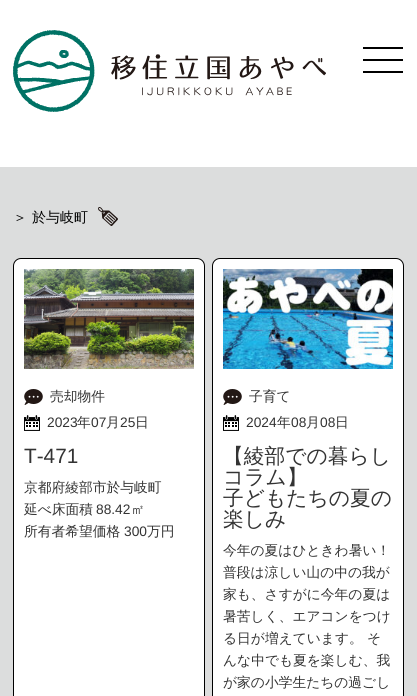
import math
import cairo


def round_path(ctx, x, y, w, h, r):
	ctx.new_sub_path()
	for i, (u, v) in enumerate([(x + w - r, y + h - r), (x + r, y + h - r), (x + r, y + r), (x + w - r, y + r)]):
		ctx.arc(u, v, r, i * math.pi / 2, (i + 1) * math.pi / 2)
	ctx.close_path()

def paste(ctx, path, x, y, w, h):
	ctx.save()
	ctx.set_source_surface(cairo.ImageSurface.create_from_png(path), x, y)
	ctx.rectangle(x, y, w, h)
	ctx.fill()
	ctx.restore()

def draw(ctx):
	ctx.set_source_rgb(1, 1, 1)
	ctx.paint()
	paste(ctx, 'media/1.png', 13, 30, 313, 82)
	ctx.set_source_rgb(0, 0, 0)
	ctx.rectangle(363, 47, 40, 2)
	ctx.rectangle(363, 59, 40, 2)
	ctx.rectangle(363, 71, 40, 2)
	ctx.fill()
	ctx.set_source_rgb(0.863, 0.867, 0.867)
	ctx.rectangle(0, 167, 417, 529)
	ctx.fill()
	ctx.select_font_face('WenQuanYi Zen Hei Medium')
	ctx.set_font_size(14)
	ctx.set_source_rgb(0, 0, 0)
	ctx.move_to(13, 222)
	ctx.show_text('＞')
	ctx.move_to(32, 222)
	ctx.show_text('於与岐町')
	paste(ctx, 'media/2.png', 98, 207, 20, 19)
	ctx.set_source_rgb(1, 1, 1)
	round_path(ctx, 13.5, 258.5, 191, 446, 7.5)
	ctx.fill_preserve()
	ctx.set_source_rgb(0, 0, 0)
	ctx.set_line_width(1)
	ctx.stroke()
	paste(ctx, 'media/3.png', 24, 269, 170, 100)
	paste(ctx, 'media/4.png', 24, 389, 19, 16)
	ctx.set_font_size(13.75)
	ctx.set_source_rgb(0.2, 0.2, 0.2)
	ctx.move_to(50, 401)
	ctx.show_text('売却物件')
	paste(ctx, 'media/5.png', 24, 415, 16, 16)
	ctx.select_font_face('Liberation Sans')
	ctx.move_to(47, 427)
	ctx.show_text('2023')
	ctx.select_font_face('WenQuanYi Zen Hei Medium')
	ctx.move_to(77, 427)
	ctx.show_text('年')
	ctx.select_font_face('Liberation Sans')
	ctx.move_to(91, 427)
	ctx.show_text('07')
	ctx.select_font_face('WenQuanYi Zen Hei Medium')
	ctx.move_to(106, 427)
	ctx.show_text('月')
	ctx.select_font_face('Liberation Sans')
	ctx.move_to(120, 427)
	ctx.show_text('25')
	ctx.select_font_face('WenQuanYi Zen Hei Medium')
	ctx.move_to(135, 427)
	ctx.show_text('日')
	ctx.select_font_face('Liberation Sans')
	ctx.set_font_size(20.75)
	ctx.move_to(24, 463)
	ctx.show_text('T-471')
	ctx.select_font_face('WenQuanYi Zen Hei Medium')
	ctx.set_font_size(13.75)
	ctx.move_to(24, 492)
	ctx.show_text('京都府綾部市於与岐町')
	ctx.move_to(24, 514)
	ctx.show_text('延べ床面積')
	ctx.select_font_face('Liberation Sans')
	ctx.move_to(96, 514)
	ctx.show_text('88.42')
	ctx.select_font_face('WenQuanYi Zen Hei Medium')
	ctx.move_to(131, 514)
	ctx.show_text('㎡')
	ctx.move_to(24, 536)
	ctx.show_text('所有者希望価格')
	ctx.select_font_face('Liberation Sans')
	ctx.move_to(124, 536)
	ctx.show_text('300')
	ctx.select_font_face('WenQuanYi Zen Hei Medium')
	ctx.move_to(147, 536)
	ctx.show_text('万円')
	ctx.set_source_rgb(1, 1, 1)
	round_path(ctx, 212.5, 258.5, 191, 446, 7.5)
	ctx.fill_preserve()
	ctx.set_source_rgb(0, 0, 0)
	ctx.stroke()
	paste(ctx, 'media/6.png', 223, 269, 170, 100)
	paste(ctx, 'media/4.png', 223, 389, 19, 16)
	ctx.set_source_rgb(0.2, 0.2, 0.2)
	ctx.move_to(249, 401)
	ctx.show_text('子育て')
	paste(ctx, 'media/5.png', 223, 415, 16, 16)
	ctx.select_font_face('Liberation Sans')
	ctx.move_to(246, 427)
	ctx.show_text('2024')
	ctx.select_font_face('WenQuanYi Zen Hei Medium')
	ctx.move_to(277, 427)
	ctx.show_text('年')
	ctx.select_font_face('Liberation Sans')
	ctx.move_to(291, 427)
	ctx.show_text('08')
	ctx.select_font_face('WenQuanYi Zen Hei Medium')
	ctx.move_to(306, 427)
	ctx.show_text('月')
	ctx.select_font_face('Liberation Sans')
	ctx.move_to(320, 427)
	ctx.show_text('08')
	ctx.select_font_face('WenQuanYi Zen Hei Medium')
	ctx.move_to(335, 427)
	ctx.show_text('日')
	ctx.set_font_size(20.75)
	for x, y, s in [
		(223, 463, '【綾部での暮らし'),
		(223, 484, 'コラム】'),
		(223, 505, '子どもたちの夏の'),
		(223, 526, '楽しみ'),
	]:
		ctx.move_to(x, y)
		ctx.show_text(s)
	ctx.set_font_size(13.75)
	for x, y, s in [
		(223, 555, '今年の夏はひときわ暑い！'),
		(223, 577, '普段は涼しい山の中の我が'),
		(223, 599, '家も、さすがに今年の夏は'),
		(223, 621, '暑苦しく、エアコンをつけ'),
		(223, 643, 'る日が増えています。 そ'),
		(223, 665, 'んな中でも夏を楽しむ、我'),
		(223, 687, 'が家の小学生たちの過ごし'),
	]:
		ctx.move_to(x, y)
		ctx.show_text(s)


surface = cairo.ImageSurface(cairo.FORMAT_RGB24, 417, 696)
ctx = cairo.Context(surface)
options = cairo.FontOptions()
options.set_hint_metrics(cairo.HINT_METRICS_OFF)
options.set_hint_style(cairo.HINT_STYLE_NONE)
ctx.set_font_options(options)
ctx.set_miter_limit(4)
draw(ctx)
surface.write_to_png('image.png')
